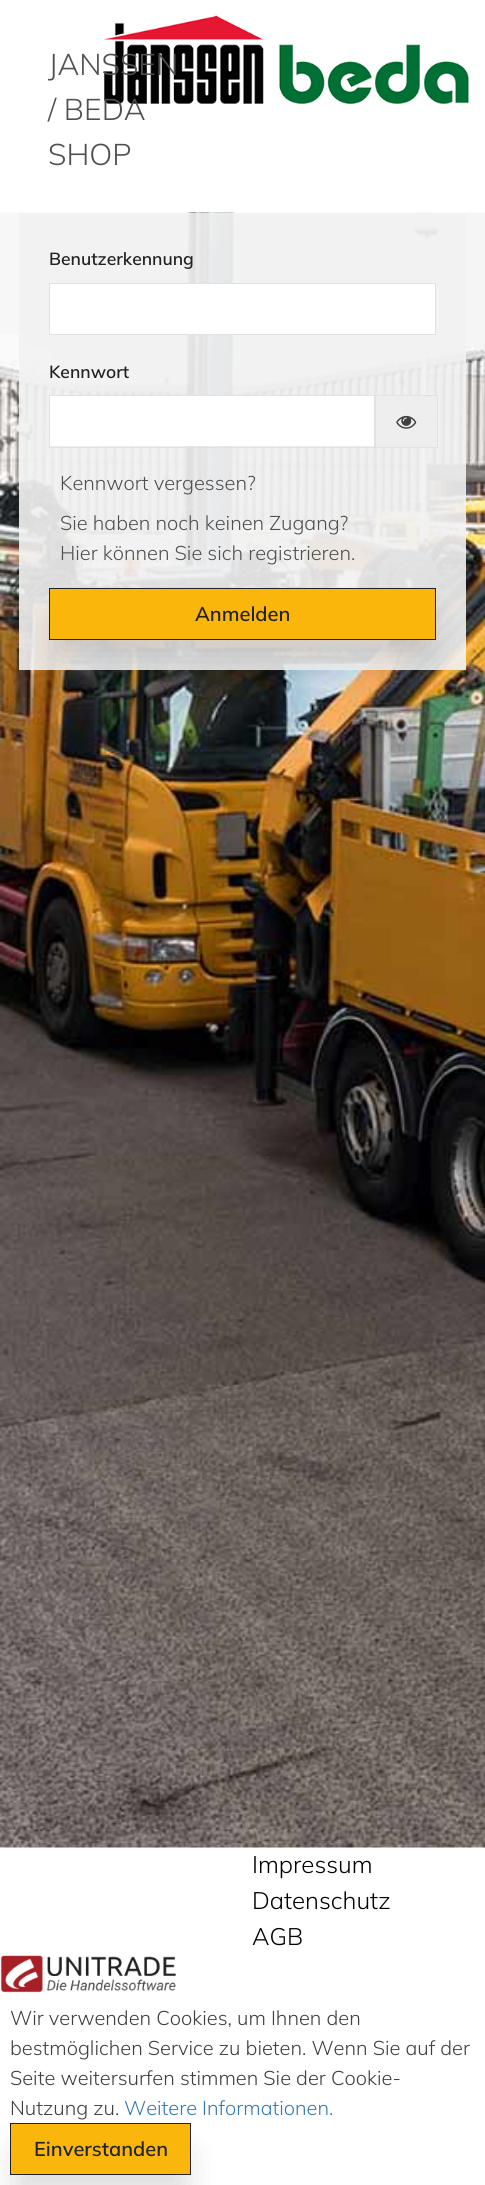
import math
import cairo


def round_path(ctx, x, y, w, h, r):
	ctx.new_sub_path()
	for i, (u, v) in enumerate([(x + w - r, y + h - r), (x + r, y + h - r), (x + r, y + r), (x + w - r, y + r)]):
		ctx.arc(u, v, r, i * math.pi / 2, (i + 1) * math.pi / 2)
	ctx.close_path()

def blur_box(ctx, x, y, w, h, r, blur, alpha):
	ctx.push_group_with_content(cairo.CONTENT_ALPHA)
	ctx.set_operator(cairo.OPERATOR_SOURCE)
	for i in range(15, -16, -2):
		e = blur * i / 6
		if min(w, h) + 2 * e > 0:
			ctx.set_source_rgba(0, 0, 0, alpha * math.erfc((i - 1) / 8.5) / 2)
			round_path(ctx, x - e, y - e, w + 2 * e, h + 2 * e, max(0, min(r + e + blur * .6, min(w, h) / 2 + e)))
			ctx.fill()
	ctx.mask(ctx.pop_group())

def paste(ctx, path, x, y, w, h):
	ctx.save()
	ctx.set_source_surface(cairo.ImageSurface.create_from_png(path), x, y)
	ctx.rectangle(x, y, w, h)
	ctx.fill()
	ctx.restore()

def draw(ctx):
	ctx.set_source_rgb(1, 1, 1)
	ctx.paint()
	paste(ctx, 'media/1.png', 104, 15, 365, 89)
	ctx.select_font_face('Mulish ExtraLight')
	ctx.set_font_size(30)
	ctx.set_source_rgb(0.314, 0.314, 0.314)
	for x, y, s in [
		(48, 75, 'JANSSEN'),
		(48, 120, '/ BEDA'),
		(48, 165, 'SHOP'),
	]:
		ctx.move_to(x, y)
		ctx.show_text(s)
	paste(ctx, 'media/2.png', 0, 212, 485, 1636)
	ctx.set_source_rgba(0.949, 0.949, 0.949, 0.9)
	ctx.rectangle(19, 213, 447, 457)
	ctx.fill()
	ctx.select_font_face('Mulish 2 ExtraLight')
	ctx.set_font_size(17.5)
	ctx.set_source_rgb(0.133, 0.133, 0.133)
	ctx.move_to(49, 265)
	ctx.show_text('Benutzerkennung')
	ctx.set_source_rgb(1, 1, 1)
	ctx.rectangle(49.5, 283.5, 386, 51)
	ctx.fill_preserve()
	ctx.set_source_rgb(0.882, 0.882, 0.882)
	ctx.set_line_width(1)
	ctx.stroke()
	ctx.set_source_rgb(0.133, 0.133, 0.133)
	ctx.move_to(49, 378)
	ctx.show_text('Kennwort')
	ctx.set_source_rgb(1, 1, 1)
	ctx.rectangle(50, 396, 324, 50)
	ctx.fill()
	ctx.rectangle(49.5, 395.5, 325, 52)
	ctx.set_source_rgb(0.882, 0.882, 0.882)
	ctx.stroke()
	ctx.set_source_rgb(0.933, 0.933, 0.933)
	ctx.rectangle(375.5, 395.5, 62, 52)
	ctx.fill_preserve()
	ctx.set_source_rgb(0.882, 0.882, 0.882)
	ctx.stroke()
	paste(ctx, 'media/3.png', 396, 415, 21, 14)
	ctx.select_font_face('Mulish ExtraLight')
	ctx.set_font_size(20)
	ctx.set_source_rgb(0.314, 0.314, 0.314)
	for x, y, s in [
		(60, 490, 'Kennwort vergessen?'),
		(60, 530, 'Sie haben noch keinen Zugang?'),
		(60, 560, 'Hier können Sie sich registrieren.'),
	]:
		ctx.move_to(x, y)
		ctx.show_text(s)
	ctx.set_source_rgb(0, 0, 0)
	blur_box(ctx, 56, 619, 373, 36, 0, 17.5, 0.15)
	ctx.set_source_rgb(0.98, 0.714, 0.043)
	ctx.rectangle(49.5, 588.5, 386, 51)
	ctx.fill_preserve()
	ctx.set_source_rgb(0.133, 0.133, 0.133)
	ctx.stroke()
	ctx.select_font_face('Mulish 2 ExtraLight')
	ctx.move_to(195, 621)
	ctx.show_text('Anmelden')
	ctx.select_font_face('Mulish ExtraLight')
	ctx.set_font_size(24)
	ctx.set_source_rgb(0, 0, 0)
	for x, y, s in [
		(252, 1873, 'Impressum'),
		(252, 1909, 'Datenschutz'),
		(252, 1945, 'AGB'),
	]:
		ctx.move_to(x, y)
		ctx.show_text(s)
	paste(ctx, 'media/4.png', 0, 1955, 176, 38)
	ctx.set_font_size(20)
	ctx.set_source_rgb(0.251, 0.251, 0.251)
	for x, y, s in [
		(10, 2025, 'Wir verwenden Cookies, um Ihnen den'),
		(10, 2055, 'bestmöglichen Service zu bieten. Wenn Sie auf der'),
		(10, 2085, 'Seite weitersurfen stimmen Sie der Cookie-'),
		(10, 2115, 'Nutzung zu.'),
	]:
		ctx.move_to(x, y)
		ctx.show_text(s)
	ctx.set_source_rgb(0.2, 0.478, 0.718)
	ctx.move_to(124, 2115)
	ctx.show_text('Weitere Informationen.')
	ctx.set_source_rgb(0, 0, 0)
	blur_box(ctx, 18, 2154, 166, 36, 0, 17.5, 0.15)
	ctx.set_source_rgb(0.98, 0.714, 0.043)
	ctx.rectangle(10.5, 2123.5, 180, 51)
	ctx.fill_preserve()
	ctx.set_source_rgb(0.133, 0.133, 0.133)
	ctx.stroke()
	ctx.select_font_face('Mulish 2 ExtraLight')
	ctx.move_to(34, 2156)
	ctx.show_text('Einverstanden')


surface = cairo.ImageSurface(cairo.FORMAT_RGB24, 485, 2185)
ctx = cairo.Context(surface)
options = cairo.FontOptions()
options.set_hint_metrics(cairo.HINT_METRICS_OFF)
options.set_hint_style(cairo.HINT_STYLE_NONE)
ctx.set_font_options(options)
ctx.set_miter_limit(4)
draw(ctx)
surface.write_to_png('image.png')
